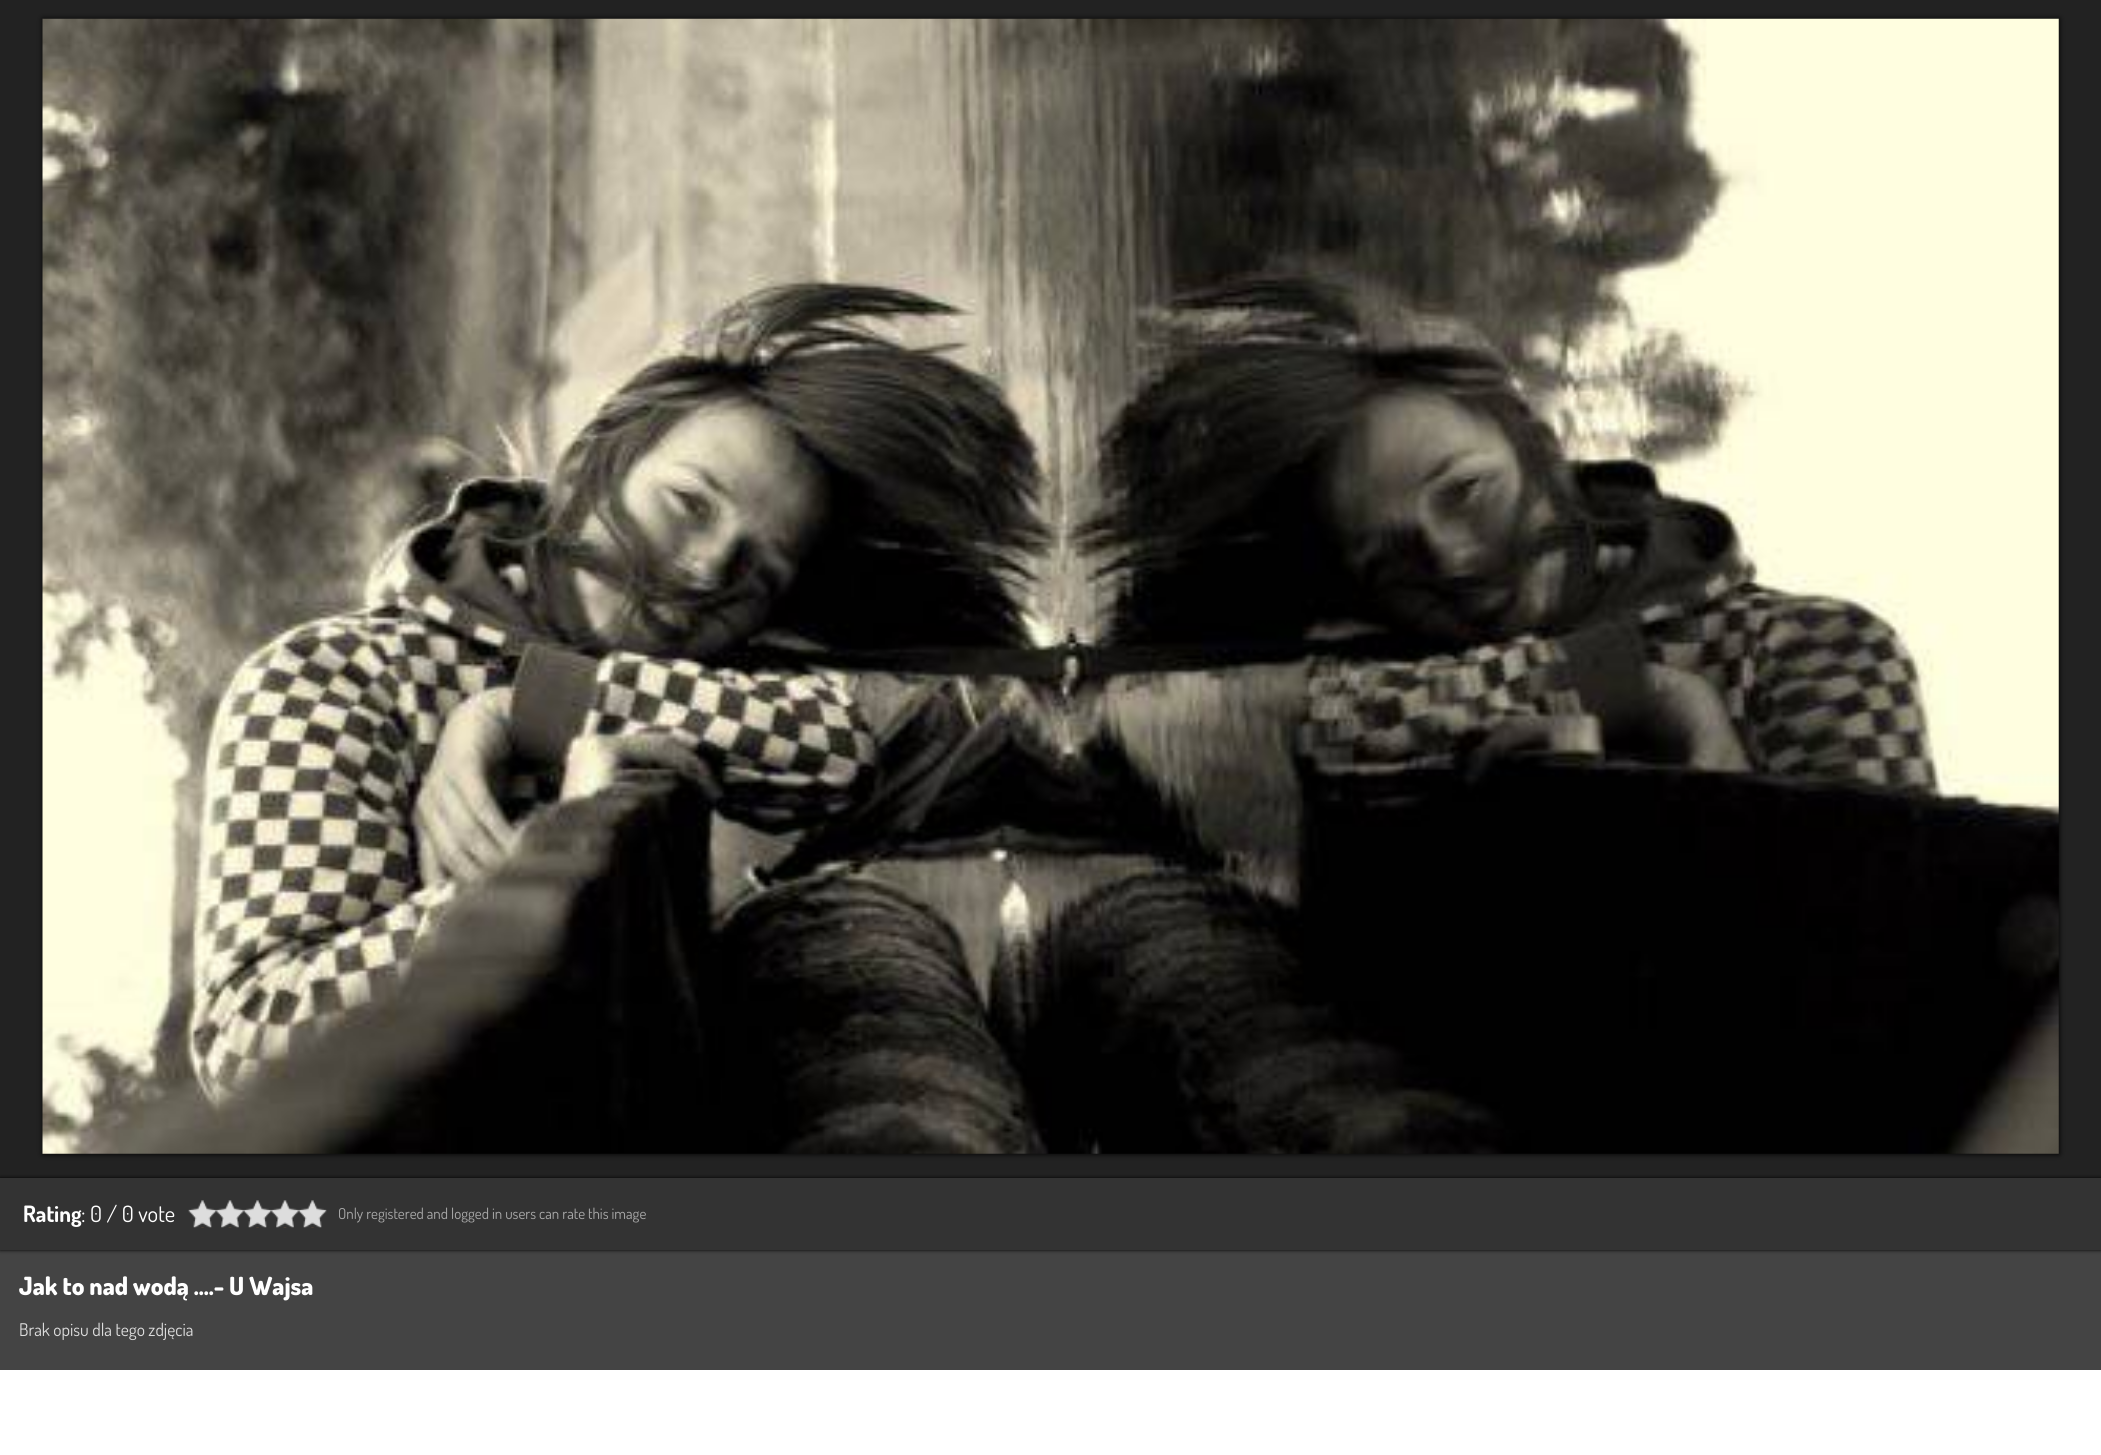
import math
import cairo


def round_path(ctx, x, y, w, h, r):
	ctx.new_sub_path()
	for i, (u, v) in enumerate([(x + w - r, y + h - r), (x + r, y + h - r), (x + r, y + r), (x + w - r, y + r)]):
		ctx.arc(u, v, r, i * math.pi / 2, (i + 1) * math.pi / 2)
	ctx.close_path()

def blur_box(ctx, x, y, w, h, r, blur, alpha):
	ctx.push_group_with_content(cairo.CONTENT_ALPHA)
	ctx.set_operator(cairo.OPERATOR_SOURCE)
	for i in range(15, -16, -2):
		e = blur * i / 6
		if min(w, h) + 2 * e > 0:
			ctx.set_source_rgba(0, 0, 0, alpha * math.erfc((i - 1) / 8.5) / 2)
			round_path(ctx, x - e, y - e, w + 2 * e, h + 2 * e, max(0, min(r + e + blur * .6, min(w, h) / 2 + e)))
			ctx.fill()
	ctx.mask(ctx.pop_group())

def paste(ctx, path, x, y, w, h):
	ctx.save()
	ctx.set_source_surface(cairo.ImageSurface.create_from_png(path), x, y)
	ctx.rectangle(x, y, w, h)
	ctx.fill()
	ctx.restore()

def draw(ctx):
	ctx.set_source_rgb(1, 1, 1)
	ctx.paint()
	ctx.set_source_rgb(0.133, 0.133, 0.133)
	ctx.rectangle(0, 0, 2101, 1178)
	ctx.fill()
	ctx.set_source_rgb(0, 0, 0)
	blur_box(ctx, 43, 19, 2016, 1135, 0, 3, 1)
	paste(ctx, 'media/1.png', 42, 18, 2017, 1136)
	ctx.set_source_rgb(0.267, 0.267, 0.267)
	ctx.rectangle(0, 1250, 2101, 120)
	ctx.fill()
	ctx.set_source_rgb(0, 0, 0)
	blur_box(ctx, 0, 1178, 2101, 72, 0, 2, 1)
	ctx.set_source_rgb(0.2, 0.2, 0.2)
	ctx.rectangle(0, 1178, 2101, 72)
	ctx.fill()
	ctx.select_font_face('Dosis', cairo.FONT_SLANT_NORMAL, cairo.FONT_WEIGHT_BOLD)
	ctx.set_font_size(22.5)
	ctx.set_source_rgb(1, 1, 1)
	ctx.move_to(23, 1222)
	ctx.show_text('Rating')
	ctx.select_font_face('Dosis')
	ctx.move_to(81, 1222)
	ctx.show_text(': 0 / 0 vote')
	paste(ctx, 'media/2.png', 188, 1200, 139, 28)
	ctx.set_font_size(15)
	ctx.set_source_rgb(0.667, 0.667, 0.667)
	ctx.move_to(338, 1219)
	ctx.show_text('Only registered and logged in users can rate this image')
	ctx.select_font_face('Dosis ExtraBold')
	ctx.set_font_size(25)
	ctx.set_source_rgb(1, 1, 1)
	ctx.move_to(19, 1295)
	ctx.show_text('Jak to nad wodą ....- U Wajsa')
	ctx.select_font_face('Dosis')
	ctx.set_font_size(17.5)
	ctx.set_source_rgb(0.867, 0.867, 0.867)
	ctx.move_to(19, 1336)
	ctx.show_text('Brak opisu dla tego zdjęcia')


surface = cairo.ImageSurface(cairo.FORMAT_RGB24, 2101, 1455)
ctx = cairo.Context(surface)
options = cairo.FontOptions()
options.set_hint_metrics(cairo.HINT_METRICS_OFF)
options.set_hint_style(cairo.HINT_STYLE_NONE)
ctx.set_font_options(options)
ctx.set_miter_limit(4)
draw(ctx)
surface.write_to_png('image.png')
